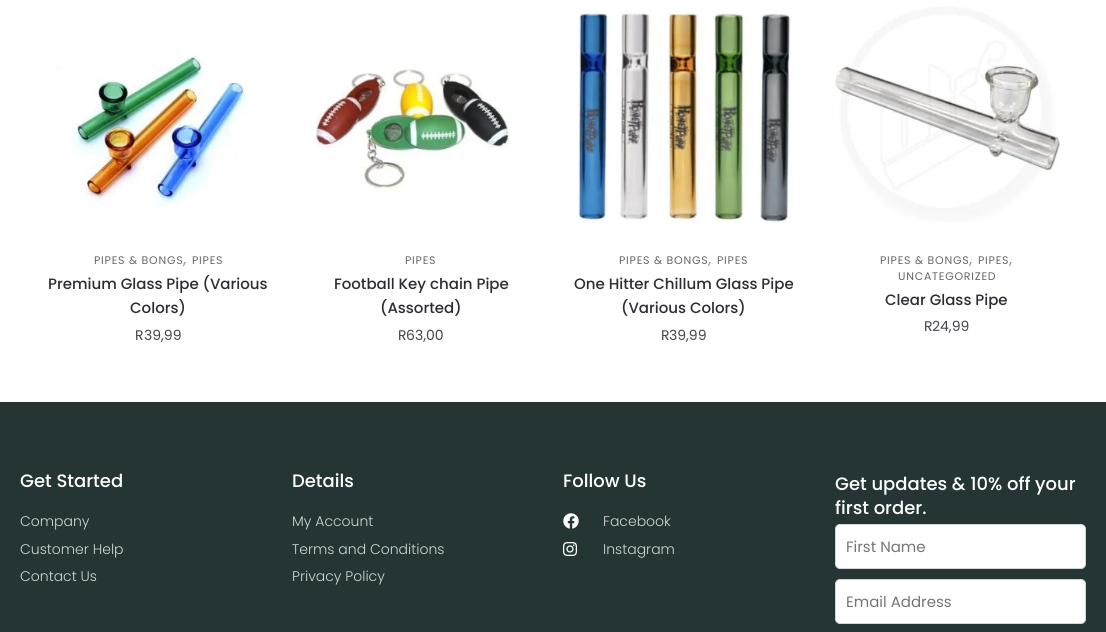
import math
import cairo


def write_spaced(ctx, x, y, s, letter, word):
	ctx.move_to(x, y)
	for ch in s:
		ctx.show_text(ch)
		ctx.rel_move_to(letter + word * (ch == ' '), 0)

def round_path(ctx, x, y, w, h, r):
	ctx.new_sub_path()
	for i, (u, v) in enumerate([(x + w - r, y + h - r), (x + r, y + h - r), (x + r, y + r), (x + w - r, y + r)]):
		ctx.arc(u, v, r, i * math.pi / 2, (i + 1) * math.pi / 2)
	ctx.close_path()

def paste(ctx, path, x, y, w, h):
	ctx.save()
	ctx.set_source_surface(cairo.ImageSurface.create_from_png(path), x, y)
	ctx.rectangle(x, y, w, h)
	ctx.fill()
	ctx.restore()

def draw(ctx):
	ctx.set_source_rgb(1, 1, 1)
	ctx.paint()
	paste(ctx, 'media/1.png', 57, 55, 190, 151)
	ctx.select_font_face('Poppins')
	ctx.set_font_size(11)
	ctx.set_source_rgb(0.4, 0.4, 0.4)
	write_spaced(ctx, 94, 264, 'PIPES & BONGS', 0.75, 0)
	ctx.set_font_size(16)
	ctx.set_source_rgb(0.6, 0.6, 0.6)
	write_spaced(ctx, 183, 264, ',', 0.75, 0)
	ctx.set_font_size(11)
	ctx.set_source_rgb(0.4, 0.4, 0.4)
	write_spaced(ctx, 192, 264, 'PIPES', 0.75, 0)
	ctx.select_font_face('Poppins Medium')
	ctx.set_font_size(15)
	ctx.set_source_rgb(0.173, 0.176, 0.2)
	ctx.move_to(48, 289)
	ctx.show_text('Premium Glass Pipe (Various')
	ctx.move_to(130, 313)
	ctx.show_text('Colors)')
	ctx.select_font_face('Poppins')
	ctx.set_font_size(14)
	ctx.set_source_rgb(0.263, 0.271, 0.294)
	ctx.move_to(135, 340)
	ctx.show_text('R')
	ctx.move_to(144, 340)
	ctx.show_text('39,99')
	paste(ctx, 'media/2.png', 314, 67, 196, 128)
	ctx.set_font_size(11)
	ctx.set_source_rgb(0.4, 0.4, 0.4)
	write_spaced(ctx, 405, 264, 'PIPES', 0.75, 0)
	ctx.select_font_face('Poppins Medium')
	ctx.set_font_size(15)
	ctx.set_source_rgb(0.173, 0.176, 0.2)
	ctx.move_to(334, 289)
	ctx.show_text('Football Key chain Pipe')
	ctx.move_to(380, 313)
	ctx.show_text('(Assorted)')
	ctx.select_font_face('Poppins')
	ctx.set_font_size(14)
	ctx.set_source_rgb(0.263, 0.271, 0.294)
	ctx.move_to(398, 340)
	ctx.show_text('R')
	ctx.move_to(406, 340)
	ctx.show_text('63,00')
	paste(ctx, 'media/3.png', 577, 11, 214, 212)
	ctx.set_font_size(11)
	ctx.set_source_rgb(0.4, 0.4, 0.4)
	write_spaced(ctx, 619, 264, 'PIPES & BONGS', 0.75, 0)
	ctx.set_font_size(16)
	ctx.set_source_rgb(0.6, 0.6, 0.6)
	write_spaced(ctx, 708, 264, ',', 0.75, 0)
	ctx.set_font_size(11)
	ctx.set_source_rgb(0.4, 0.4, 0.4)
	write_spaced(ctx, 717, 264, 'PIPES', 0.75, 0)
	ctx.select_font_face('Poppins Medium')
	ctx.set_font_size(15)
	ctx.set_source_rgb(0.173, 0.176, 0.2)
	ctx.move_to(574, 289)
	ctx.show_text('One Hitter Chillum Glass Pipe')
	ctx.move_to(621, 313)
	ctx.show_text('(Various Colors)')
	ctx.select_font_face('Poppins')
	ctx.set_font_size(14)
	ctx.set_source_rgb(0.263, 0.271, 0.294)
	ctx.move_to(661, 340)
	ctx.show_text('R')
	ctx.move_to(669, 340)
	ctx.show_text('39,99')
	paste(ctx, 'media/4.png', 834, 6, 227, 216)
	ctx.set_font_size(11)
	ctx.set_source_rgb(0.4, 0.4, 0.4)
	write_spaced(ctx, 880, 264, 'PIPES & BONGS', 0.75, 0)
	ctx.set_font_size(16)
	ctx.set_source_rgb(0.6, 0.6, 0.6)
	write_spaced(ctx, 969, 264, ',', 0.75, 0)
	ctx.set_font_size(11)
	ctx.set_source_rgb(0.4, 0.4, 0.4)
	write_spaced(ctx, 978, 264, 'PIPES', 0.75, 0)
	ctx.set_font_size(16)
	ctx.set_source_rgb(0.6, 0.6, 0.6)
	write_spaced(ctx, 1009, 264, ',', 0.75, 0)
	ctx.set_font_size(11)
	ctx.set_source_rgb(0.4, 0.4, 0.4)
	write_spaced(ctx, 898, 280, 'UNCATEGORIZED', 0.75, 0)
	ctx.select_font_face('Poppins Medium')
	ctx.set_font_size(15)
	ctx.set_source_rgb(0.173, 0.176, 0.2)
	ctx.move_to(885, 305)
	ctx.show_text('Clear Glass Pipe')
	ctx.select_font_face('Poppins')
	ctx.set_font_size(14)
	ctx.set_source_rgb(0.263, 0.271, 0.294)
	ctx.move_to(924, 331)
	ctx.show_text('R')
	ctx.move_to(932, 331)
	ctx.show_text('24,99')
	ctx.set_source_rgb(0.145, 0.208, 0.212)
	ctx.rectangle(0, 402, 1106, 230)
	ctx.fill()
	ctx.select_font_face('Poppins Medium')
	ctx.set_font_size(18)
	ctx.set_source_rgb(1, 1, 1)
	ctx.move_to(20, 487)
	ctx.show_text('Get Started')
	ctx.select_font_face('Poppins Light')
	ctx.set_font_size(14)
	ctx.set_source_rgb(0.82, 0.835, 0.835)
	for x, y, s in [
		(20, 526, 'Company'),
		(20, 554, 'Customer Help'),
		(20, 581, 'Contact Us'),
	]:
		ctx.move_to(x, y)
		ctx.show_text(s)
	ctx.select_font_face('Poppins Medium')
	ctx.set_font_size(18)
	ctx.set_source_rgb(1, 1, 1)
	ctx.move_to(292, 487)
	ctx.show_text('Details')
	ctx.select_font_face('Poppins Light')
	ctx.set_font_size(14)
	ctx.set_source_rgb(0.82, 0.835, 0.835)
	for x, y, s in [
		(292, 526, 'My Account'),
		(292, 554, 'Terms and Conditions'),
		(292, 581, 'Privacy Policy'),
	]:
		ctx.move_to(x, y)
		ctx.show_text(s)
	ctx.select_font_face('Poppins Medium')
	ctx.set_font_size(18)
	ctx.set_source_rgb(1, 1, 1)
	ctx.move_to(563, 487)
	ctx.show_text('Follow Us')
	paste(ctx, 'media/5.png', 563, 513, 16, 16)
	ctx.select_font_face('Poppins Light')
	ctx.set_font_size(14)
	ctx.set_source_rgb(0.82, 0.835, 0.835)
	ctx.move_to(603, 526)
	ctx.show_text('Facebook')
	paste(ctx, 'media/6.png', 563, 542, 14, 14)
	ctx.move_to(603, 554)
	ctx.show_text('Instagram')
	ctx.select_font_face('Poppins Medium')
	ctx.set_font_size(18)
	ctx.set_source_rgb(1, 1, 1)
	ctx.move_to(835, 490)
	ctx.show_text('Get updates & 10% off your')
	ctx.move_to(835, 514)
	ctx.show_text('first order.')
	round_path(ctx, 835.5, 524.5, 250, 44, 4.5)
	ctx.fill_preserve()
	ctx.set_source_rgb(0.824, 0.839, 0.863)
	ctx.set_line_width(1)
	ctx.stroke()
	ctx.select_font_face('Poppins')
	ctx.set_font_size(15)
	ctx.set_source_rgb(0.459, 0.459, 0.459)
	ctx.move_to(846, 552)
	ctx.show_text('First Name')
	ctx.set_source_rgb(1, 1, 1)
	round_path(ctx, 835.5, 579.5, 250, 44, 4.5)
	ctx.fill_preserve()
	ctx.set_source_rgb(0.824, 0.839, 0.863)
	ctx.stroke()
	ctx.set_source_rgb(0.459, 0.459, 0.459)
	ctx.move_to(846, 607)
	ctx.show_text('Email Address')


surface = cairo.ImageSurface(cairo.FORMAT_RGB24, 1106, 632)
ctx = cairo.Context(surface)
options = cairo.FontOptions()
options.set_hint_metrics(cairo.HINT_METRICS_OFF)
options.set_hint_style(cairo.HINT_STYLE_NONE)
ctx.set_font_options(options)
ctx.set_miter_limit(4)
draw(ctx)
surface.write_to_png('image.png')
